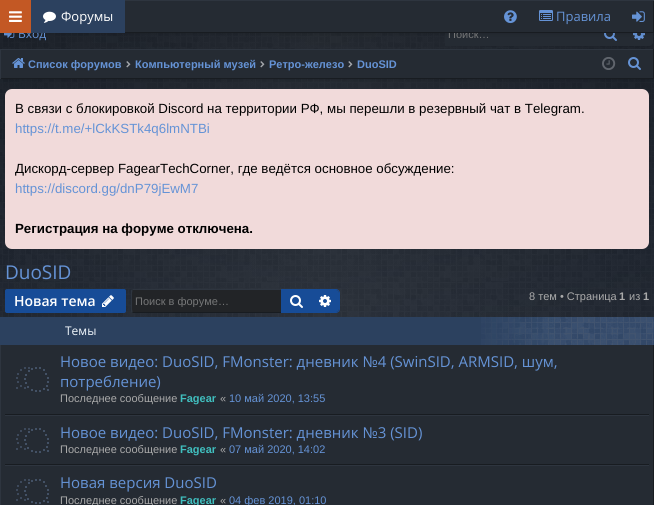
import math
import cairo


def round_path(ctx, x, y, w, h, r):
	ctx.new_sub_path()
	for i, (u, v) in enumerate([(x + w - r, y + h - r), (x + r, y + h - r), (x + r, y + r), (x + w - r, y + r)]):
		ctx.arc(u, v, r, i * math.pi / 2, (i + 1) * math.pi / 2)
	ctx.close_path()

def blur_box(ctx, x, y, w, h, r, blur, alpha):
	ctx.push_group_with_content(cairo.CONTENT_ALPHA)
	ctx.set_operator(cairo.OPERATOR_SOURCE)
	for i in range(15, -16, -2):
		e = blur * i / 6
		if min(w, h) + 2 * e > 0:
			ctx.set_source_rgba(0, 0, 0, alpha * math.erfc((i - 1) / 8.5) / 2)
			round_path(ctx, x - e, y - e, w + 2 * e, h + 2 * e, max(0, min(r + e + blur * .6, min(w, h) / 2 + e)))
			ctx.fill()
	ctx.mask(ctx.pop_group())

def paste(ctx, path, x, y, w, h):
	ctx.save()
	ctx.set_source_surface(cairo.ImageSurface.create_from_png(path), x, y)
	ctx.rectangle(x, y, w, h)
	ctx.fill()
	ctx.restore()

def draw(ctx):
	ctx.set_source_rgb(0.11, 0.137, 0.18)
	ctx.paint()
	paste(ctx, 'media/1.png', 0, 33, 654, 284)
	paste(ctx, 'media/7.png', 4, 33, 11, 5)
	ctx.set_source_rgb(0.145, 0.169, 0.2)
	ctx.rectangle(445, 33, 150, 13)
	ctx.fill()
	ctx.rectangle(595, 33, 30, 13)
	ctx.fill()
	paste(ctx, 'media/8.png', 604, 33, 13, 8)
	ctx.new_path()
	ctx.move_to(625, 22)
	ctx.line_to(649, 22)
	ctx.curve_to(651, 22, 653, 24, 653, 26)
	ctx.line_to(653, 42)
	ctx.curve_to(653, 44, 651, 46, 649, 46)
	ctx.line_to(625, 46)
	ctx.close_path()
	ctx.fill()
	paste(ctx, 'media/9.png', 633, 33, 12, 7)
	ctx.set_source_rgb(0, 0, 0)
	blur_box(ctx, 5, 10, 644, 23, 0, 2.5, 0.2)
	ctx.select_font_face('Liberation Sans')
	ctx.set_font_size(11)
	ctx.set_source_rgb(0.459, 0.463, 0.467)
	ctx.move_to(448, 38)
	ctx.show_text('Поиск…')
	ctx.set_source_rgb(0.145, 0.169, 0.2)
	ctx.rectangle(125, 1, 528, 31)
	ctx.fill()
	ctx.select_font_face('Open Sans')
	ctx.set_font_size(12)
	ctx.set_source_rgb(0.396, 0.576, 0.839)
	ctx.move_to(18, 38)
	ctx.show_text('Вход')
	ctx.save()
	ctx.rectangle(0, 0, 654, 33)
	ctx.clip()
	ctx.set_source_rgb(0.094, 0.11, 0.129)
	ctx.set_fill_rule(cairo.FILL_RULE_EVEN_ODD)
	ctx.new_path()
	ctx.move_to(-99, -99)
	ctx.line_to(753, -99)
	ctx.line_to(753, 132)
	ctx.line_to(-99, 132)
	ctx.close_path()
	ctx.move_to(-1, -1)
	ctx.line_to(653, -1)
	ctx.line_to(653, 32)
	ctx.line_to(-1, 32)
	ctx.close_path()
	ctx.fill()
	ctx.set_source_rgb(0.18, 0.208, 0.247)
	ctx.new_path()
	ctx.move_to(-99, -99)
	ctx.line_to(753, -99)
	ctx.line_to(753, 132)
	ctx.line_to(-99, 132)
	ctx.close_path()
	ctx.move_to(1, 1)
	ctx.line_to(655, 1)
	ctx.line_to(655, 34)
	ctx.line_to(1, 34)
	ctx.close_path()
	ctx.fill()
	ctx.restore()
	ctx.set_source_rgb(0.765, 0.345, 0.141)
	ctx.rectangle(0, 0, 31, 33)
	ctx.fill()
	paste(ctx, 'media/2.png', 9, 11, 13, 11)
	ctx.set_source_rgb(0.173, 0.255, 0.373)
	ctx.rectangle(31, 0, 94, 33)
	ctx.fill()
	paste(ctx, 'media/3.png', 43, 11, 13, 12)
	ctx.set_font_size(13)
	ctx.set_source_rgb(1, 1, 1)
	ctx.move_to(61, 21)
	ctx.show_text('Форумы')
	paste(ctx, 'media/4.png', 504, 10, 13, 14)
	paste(ctx, 'media/5.png', 539, 10, 14, 11)
	ctx.set_source_rgb(0.396, 0.576, 0.839)
	ctx.move_to(556, 21)
	ctx.show_text('Правила')
	paste(ctx, 'media/6.png', 632, 11, 13, 11)
	ctx.set_source_rgb(0, 0, 0)
	blur_box(ctx, 5, 59, 644, 20, 0, 2.5, 0.2)
	ctx.set_source_rgb(0.145, 0.169, 0.2)
	ctx.rectangle(1, 50, 652, 28)
	ctx.fill()
	ctx.set_source_rgb(0.18, 0.208, 0.247)
	ctx.rectangle(0, 49, 654, 1)
	ctx.fill()
	ctx.set_source_rgb(0.094, 0.11, 0.129)
	ctx.rectangle(653, 49, 1, 30)
	ctx.rectangle(0, 78, 654, 1)
	ctx.fill()
	ctx.set_source_rgb(0.18, 0.208, 0.247)
	ctx.rectangle(0, 49, 1, 30)
	ctx.fill()
	paste(ctx, 'media/10.png', 12, 58, 13, 10)
	ctx.select_font_face('Liberation Sans', cairo.FONT_SLANT_NORMAL, cairo.FONT_WEIGHT_BOLD)
	ctx.set_font_size(11)
	ctx.set_source_rgb(0.396, 0.576, 0.839)
	ctx.move_to(28, 68)
	ctx.show_text('Список форумов')
	paste(ctx, 'media/11.png', 126, 61, 5, 7)
	ctx.move_to(135, 68)
	ctx.show_text('Компьютерный музей')
	paste(ctx, 'media/11.png', 260, 61, 5, 7)
	ctx.move_to(269, 68)
	ctx.show_text('Ретро-железо')
	paste(ctx, 'media/11.png', 348, 61, 5, 7)
	ctx.move_to(357, 68)
	ctx.show_text('DuoSID')
	paste(ctx, 'media/12.png', 602, 57, 14, 13)
	paste(ctx, 'media/13.png', 628, 57, 13, 13)
	ctx.set_source_rgb(0.945, 0.855, 0.855)
	round_path(ctx, 5, 89, 644, 160, 7)
	ctx.fill()
	ctx.select_font_face('Liberation Sans')
	ctx.set_font_size(13.3)
	ctx.set_source_rgb(0, 0, 0)
	ctx.move_to(15, 113)
	ctx.show_text('В связи с блокировкой Discord на территории РФ, мы перешли в резервный чат в Telegram.')
	ctx.set_source_rgb(0.396, 0.576, 0.839)
	ctx.move_to(15, 133)
	ctx.show_text('https://t.me/+lCkKSTk4q6lmNTBi')
	ctx.set_source_rgb(0, 0, 0)
	ctx.move_to(15, 173)
	ctx.show_text('Дискорд-сервер FagearTechCorner, где ведётся основное обсуждение:')
	ctx.set_source_rgb(0.396, 0.576, 0.839)
	ctx.move_to(15, 193)
	ctx.show_text('https://discord.gg/dnP79jEwM7')
	ctx.select_font_face('Liberation Sans', cairo.FONT_SLANT_NORMAL, cairo.FONT_WEIGHT_BOLD)
	ctx.set_source_rgb(0, 0, 0)
	ctx.move_to(15, 233)
	ctx.show_text('Регистрация на форуме отключена.')
	ctx.select_font_face('Open Sans')
	ctx.set_font_size(19)
	ctx.set_source_rgb(0.396, 0.576, 0.839)
	ctx.move_to(5, 279)
	ctx.show_text('DuoSID')
	ctx.set_source_rgb(0.09, 0.298, 0.592)
	round_path(ctx, 5.5, 289.5, 120, 23, 1.5)
	ctx.fill_preserve()
	ctx.set_line_width(1)
	ctx.stroke()
	ctx.select_font_face('Open Sans SemiBold')
	ctx.set_font_size(14)
	ctx.set_source_rgb(1, 1, 1)
	ctx.move_to(14, 306)
	ctx.show_text('Новая тема')
	paste(ctx, 'media/14.png', 102, 295, 12, 12)
	ctx.set_source_rgb(0.133, 0.141, 0.153)
	ctx.new_path()
	ctx.move_to(133, 290)
	ctx.line_to(281, 290)
	ctx.line_to(281, 312)
	ctx.line_to(133, 312)
	ctx.curve_to(132.5, 312, 132, 311.5, 132, 311)
	ctx.line_to(132, 291)
	ctx.curve_to(132, 290.5, 132.5, 290, 133, 290)
	ctx.close_path()
	ctx.fill()
	ctx.set_source_rgb(0.18, 0.208, 0.247)
	ctx.new_path()
	ctx.move_to(133, 289)
	ctx.line_to(132, 290)
	ctx.line_to(281, 290)
	ctx.line_to(281, 289)
	ctx.close_path()
	ctx.fill()
	ctx.set_source_rgb(0.094, 0.11, 0.129)
	ctx.new_path()
	ctx.move_to(281, 313)
	ctx.line_to(281, 312)
	ctx.line_to(132, 312)
	ctx.line_to(133, 313)
	ctx.close_path()
	ctx.fill()
	ctx.set_source_rgb(0.18, 0.208, 0.247)
	ctx.new_path()
	ctx.move_to(131, 291)
	ctx.line_to(131, 311)
	ctx.curve_to(131, 311.5, 131, 312, 131.5, 312.5)
	ctx.line_to(132.5, 311.5)
	ctx.line_to(132, 309)
	ctx.line_to(132, 293)
	ctx.line_to(132.5, 290.5)
	ctx.line_to(131.5, 289.5)
	ctx.close_path()
	ctx.fill()
	ctx.save()
	ctx.rectangle(135, 295, 139, 12)
	ctx.clip()
	ctx.select_font_face('Liberation Sans')
	ctx.set_font_size(11)
	ctx.set_source_rgb(0.459, 0.463, 0.467)
	ctx.move_to(135, 305)
	ctx.show_text('Поиск в форуме…')
	ctx.restore()
	ctx.set_source_rgb(0.09, 0.298, 0.592)
	ctx.rectangle(281, 289, 30, 24)
	ctx.fill()
	paste(ctx, 'media/15.png', 290, 295, 13, 13)
	ctx.new_path()
	ctx.move_to(311, 290)
	ctx.line_to(336, 290)
	ctx.curve_to(337.5, 290, 339, 291.5, 339, 293)
	ctx.line_to(339, 309)
	ctx.curve_to(339, 310.5, 337.5, 312, 336, 312)
	ctx.line_to(311, 312)
	ctx.close_path()
	ctx.fill()
	ctx.set_fill_rule(cairo.FILL_RULE_EVEN_ODD)
	ctx.new_path()
	ctx.move_to(311, 289)
	ctx.line_to(336, 289)
	ctx.curve_to(338, 289, 340, 291, 340, 293)
	ctx.line_to(340, 309)
	ctx.curve_to(340, 311, 338, 313, 336, 313)
	ctx.line_to(311, 313)
	ctx.close_path()
	ctx.move_to(311, 290)
	ctx.line_to(336, 290)
	ctx.curve_to(337.5, 290, 339, 291.5, 339, 293)
	ctx.line_to(339, 309)
	ctx.curve_to(339, 310.5, 337.5, 312, 336, 312)
	ctx.line_to(311, 312)
	ctx.close_path()
	ctx.fill()
	paste(ctx, 'media/16.png', 319, 295, 12, 12)
	ctx.select_font_face('Liberation Sans')
	ctx.set_font_size(11)
	ctx.set_source_rgb(0.667, 0.667, 0.667)
	ctx.move_to(529, 300)
	ctx.show_text('8 тем • Страница')
	ctx.select_font_face('Liberation Sans', cairo.FONT_SLANT_NORMAL, cairo.FONT_WEIGHT_BOLD)
	ctx.move_to(619, 300)
	ctx.show_text('1')
	ctx.select_font_face('Liberation Sans')
	ctx.move_to(629, 300)
	ctx.show_text('из')
	ctx.select_font_face('Liberation Sans', cairo.FONT_SLANT_NORMAL, cairo.FONT_WEIGHT_BOLD)
	ctx.move_to(643, 300)
	ctx.show_text('1')
	ctx.set_source_rgb(0.145, 0.169, 0.2)
	ctx.rectangle(1, 345, 652, 160)
	ctx.fill()
	ctx.set_source_rgb(0.094, 0.11, 0.129)
	ctx.rectangle(653, 345, 1, 160)
	ctx.fill()
	ctx.set_source_rgb(0.18, 0.208, 0.247)
	ctx.rectangle(0, 345, 1, 160)
	ctx.fill()
	ctx.set_source_rgb(0.173, 0.255, 0.373)
	ctx.rectangle(0, 317, 654, 28)
	ctx.fill()
	paste(ctx, 'media/17.png', 481, 317, 173, 28)
	ctx.select_font_face('Open Sans')
	ctx.set_font_size(12)
	ctx.set_source_rgb(0.945, 0.965, 0.988)
	ctx.move_to(65, 335)
	ctx.show_text('Темы')
	ctx.set_source_rgb(0.094, 0.11, 0.129)
	ctx.rectangle(5, 414, 644, 1)
	ctx.fill()
	paste(ctx, 'media/18.png', 16, 367, 33, 25)
	ctx.set_font_size(15)
	ctx.set_source_rgb(0.396, 0.576, 0.839)
	ctx.move_to(60, 367)
	ctx.show_text('Новое видео: DuoSID, FMonster: дневник №4 (SwinSID, ARMSID, шум,')
	ctx.move_to(60, 387)
	ctx.show_text('потребление)')
	ctx.select_font_face('Liberation Sans')
	ctx.set_font_size(11)
	ctx.set_source_rgb(0.667, 0.667, 0.667)
	ctx.move_to(60, 402)
	ctx.show_text('Последнее сообщение')
	ctx.select_font_face('Liberation Sans', cairo.FONT_SLANT_NORMAL, cairo.FONT_WEIGHT_BOLD)
	ctx.set_source_rgb(0.251, 0.749, 0.749)
	ctx.move_to(180, 402)
	ctx.show_text('Fagear')
	ctx.select_font_face('Liberation Sans')
	ctx.set_source_rgb(0.667, 0.667, 0.667)
	ctx.move_to(220, 402)
	ctx.show_text('«')
	ctx.set_source_rgb(0.396, 0.576, 0.839)
	ctx.move_to(229, 402)
	ctx.show_text('10 май 2020, 13:55')
	ctx.set_source_rgb(0.18, 0.208, 0.247)
	ctx.rectangle(5, 415, 644, 1)
	ctx.fill()
	ctx.set_source_rgb(0.094, 0.11, 0.129)
	ctx.rectangle(5, 464, 644, 1)
	ctx.fill()
	paste(ctx, 'media/18.png', 16, 428, 33, 25)
	ctx.select_font_face('Open Sans')
	ctx.set_font_size(15)
	ctx.set_source_rgb(0.396, 0.576, 0.839)
	ctx.move_to(60, 438)
	ctx.show_text('Новое видео: DuoSID, FMonster: дневник №3 (SID)')
	ctx.select_font_face('Liberation Sans')
	ctx.set_font_size(11)
	ctx.set_source_rgb(0.667, 0.667, 0.667)
	ctx.move_to(60, 453)
	ctx.show_text('Последнее сообщение')
	ctx.select_font_face('Liberation Sans', cairo.FONT_SLANT_NORMAL, cairo.FONT_WEIGHT_BOLD)
	ctx.set_source_rgb(0.251, 0.749, 0.749)
	ctx.move_to(180, 453)
	ctx.show_text('Fagear')
	ctx.select_font_face('Liberation Sans')
	ctx.set_source_rgb(0.667, 0.667, 0.667)
	ctx.move_to(220, 453)
	ctx.show_text('«')
	ctx.set_source_rgb(0.396, 0.576, 0.839)
	ctx.move_to(229, 453)
	ctx.show_text('07 май 2020, 14:02')
	ctx.set_source_rgb(0.18, 0.208, 0.247)
	ctx.rectangle(5, 465, 644, 1)
	ctx.fill()
	paste(ctx, 'media/18.png', 16, 479, 33, 25)
	ctx.select_font_face('Open Sans')
	ctx.set_font_size(15)
	ctx.set_source_rgb(0.396, 0.576, 0.839)
	ctx.move_to(60, 488)
	ctx.show_text('Новая версия DuoSID')
	ctx.select_font_face('Liberation Sans')
	ctx.set_font_size(11)
	ctx.set_source_rgb(0.667, 0.667, 0.667)
	ctx.move_to(60, 504)
	ctx.show_text('Последнее сообщение')
	ctx.select_font_face('Liberation Sans', cairo.FONT_SLANT_NORMAL, cairo.FONT_WEIGHT_BOLD)
	ctx.set_source_rgb(0.251, 0.749, 0.749)
	ctx.move_to(180, 504)
	ctx.show_text('Fagear')
	ctx.select_font_face('Liberation Sans')
	ctx.set_source_rgb(0.667, 0.667, 0.667)
	ctx.move_to(220, 504)
	ctx.show_text('«')
	ctx.set_source_rgb(0.396, 0.576, 0.839)
	ctx.move_to(229, 504)
	ctx.show_text('04 фев 2019, 01:10')


surface = cairo.ImageSurface(cairo.FORMAT_RGB24, 654, 505)
ctx = cairo.Context(surface)
options = cairo.FontOptions()
options.set_hint_metrics(cairo.HINT_METRICS_OFF)
options.set_hint_style(cairo.HINT_STYLE_NONE)
ctx.set_font_options(options)
ctx.set_miter_limit(4)
draw(ctx)
surface.write_to_png('image.png')
